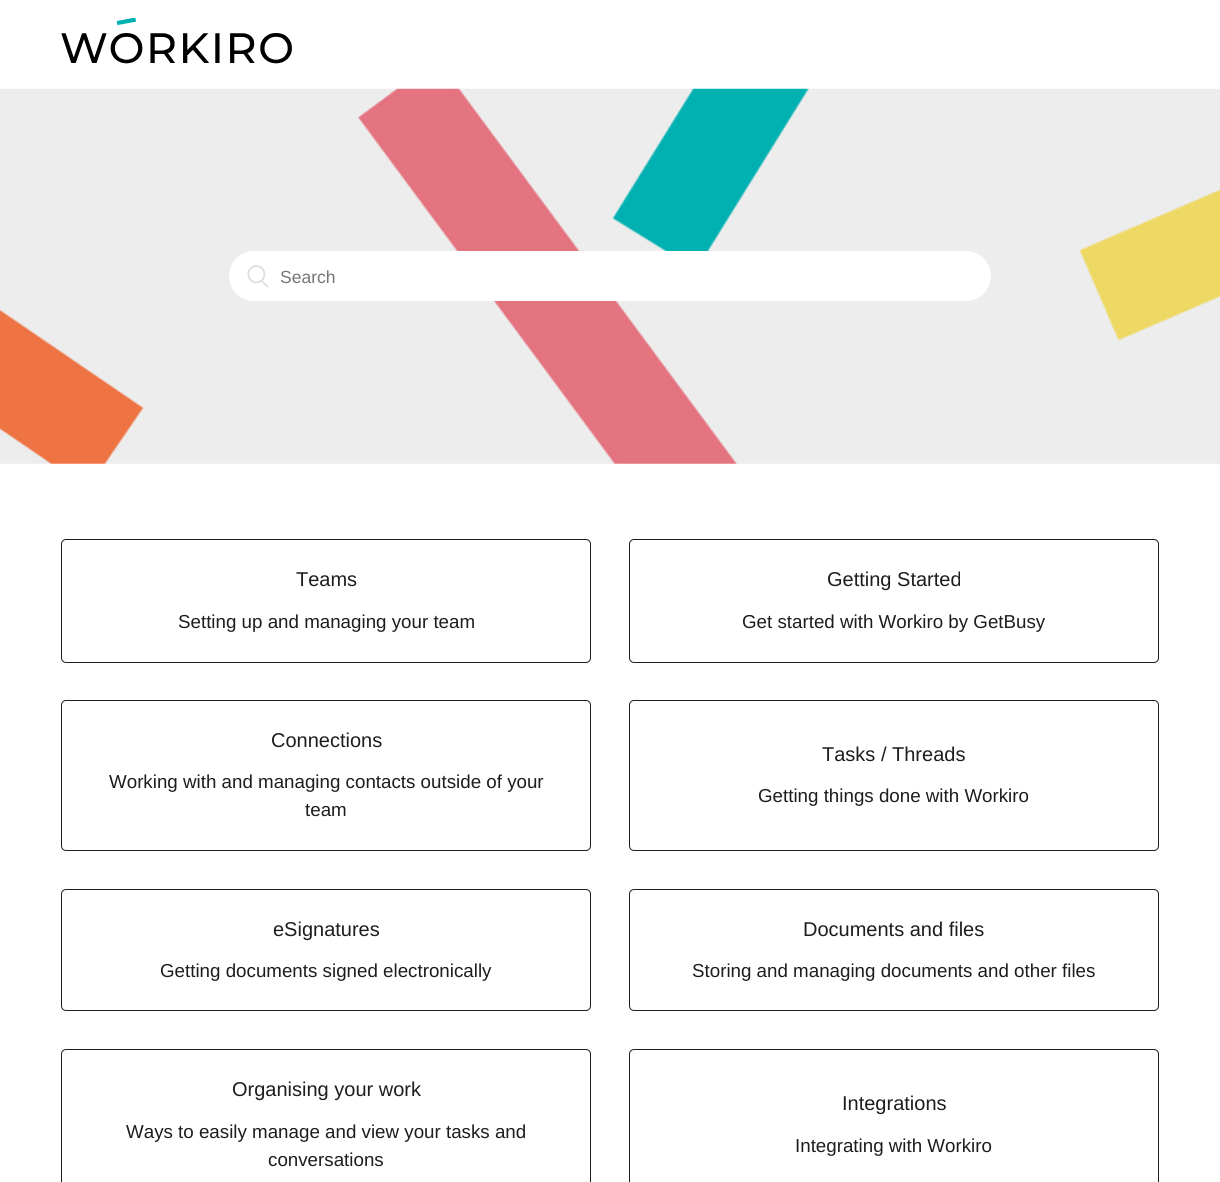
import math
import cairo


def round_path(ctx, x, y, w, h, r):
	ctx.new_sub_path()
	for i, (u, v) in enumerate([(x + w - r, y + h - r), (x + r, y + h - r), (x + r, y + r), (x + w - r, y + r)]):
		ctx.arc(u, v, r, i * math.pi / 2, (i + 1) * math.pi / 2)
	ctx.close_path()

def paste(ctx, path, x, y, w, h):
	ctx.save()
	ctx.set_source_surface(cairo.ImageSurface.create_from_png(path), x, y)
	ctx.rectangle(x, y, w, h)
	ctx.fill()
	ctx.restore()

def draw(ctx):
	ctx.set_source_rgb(1, 1, 1)
	ctx.paint()
	paste(ctx, 'media/1.png', 61, 18, 231, 46)
	paste(ctx, 'media/2.png', 0, 88, 1220, 376)
	ctx.set_source_rgb(1, 1, 1)
	round_path(ctx, 229.5, 251.5, 761, 49, 24.5)
	ctx.fill_preserve()
	ctx.set_line_width(1)
	ctx.stroke()
	paste(ctx, 'media/3.png', 247, 265, 22, 23)
	ctx.select_font_face('Liberation Sans')
	ctx.set_font_size(17.5)
	ctx.set_source_rgb(0.459, 0.459, 0.459)
	ctx.move_to(280, 283)
	ctx.show_text('Search')
	round_path(ctx, 61.5, 539.5, 529, 123, 4.5)
	ctx.set_source_rgb(0.114, 0.114, 0.106)
	ctx.stroke()
	ctx.set_font_size(20)
	ctx.move_to(296, 586)
	ctx.show_text('Teams')
	ctx.set_font_size(18.75)
	ctx.move_to(178, 628)
	ctx.show_text('Setting up and managing your team')
	round_path(ctx, 629.5, 539.5, 529, 123, 4.5)
	ctx.stroke()
	ctx.set_font_size(20)
	ctx.move_to(827, 586)
	ctx.show_text('Getting Started')
	ctx.set_font_size(18.75)
	ctx.move_to(742, 628)
	ctx.show_text('Get started with Workiro by GetBusy')
	round_path(ctx, 61.5, 700.5, 529, 150, 4.5)
	ctx.stroke()
	ctx.set_font_size(20)
	ctx.move_to(271, 747)
	ctx.show_text('Connections')
	ctx.set_font_size(18.75)
	ctx.move_to(109, 788)
	ctx.show_text('Working with and managing contacts outside of your')
	ctx.move_to(305, 816)
	ctx.show_text('team')
	round_path(ctx, 629.5, 700.5, 529, 150, 4.5)
	ctx.stroke()
	ctx.set_font_size(20)
	ctx.move_to(822, 761)
	ctx.show_text('Tasks / Threads')
	ctx.set_font_size(18.75)
	ctx.move_to(758, 802)
	ctx.show_text('Getting things done with Workiro')
	round_path(ctx, 61.5, 889.5, 529, 121, 4.5)
	ctx.stroke()
	ctx.set_font_size(20)
	ctx.move_to(273, 936)
	ctx.show_text('eSignatures')
	ctx.set_font_size(18.75)
	ctx.move_to(160, 977)
	ctx.show_text('Getting documents signed electronically')
	round_path(ctx, 629.5, 889.5, 529, 121, 4.5)
	ctx.stroke()
	ctx.set_font_size(20)
	ctx.move_to(803, 936)
	ctx.show_text('Documents and files')
	ctx.set_font_size(18.75)
	ctx.move_to(692, 977)
	ctx.show_text('Storing and managing documents and other files')
	round_path(ctx, 61.5, 1049.5, 529, 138, 4.5)
	ctx.stroke()
	ctx.set_font_size(20)
	ctx.move_to(232, 1096)
	ctx.show_text('Organising your work')
	ctx.set_font_size(18.75)
	ctx.move_to(126, 1138)
	ctx.show_text('Ways to easily manage and view your tasks and')
	ctx.move_to(268, 1166)
	ctx.show_text('conversations')
	round_path(ctx, 629.5, 1049.5, 529, 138, 4.5)
	ctx.stroke()
	ctx.set_font_size(20)
	ctx.move_to(842, 1110)
	ctx.show_text('Integrations')
	ctx.set_font_size(18.75)
	ctx.move_to(795, 1152)
	ctx.show_text('Integrating with Workiro')


surface = cairo.ImageSurface(cairo.FORMAT_RGB24, 1220, 1182)
ctx = cairo.Context(surface)
options = cairo.FontOptions()
options.set_hint_metrics(cairo.HINT_METRICS_OFF)
options.set_hint_style(cairo.HINT_STYLE_NONE)
ctx.set_font_options(options)
ctx.set_miter_limit(4)
draw(ctx)
surface.write_to_png('image.png')
